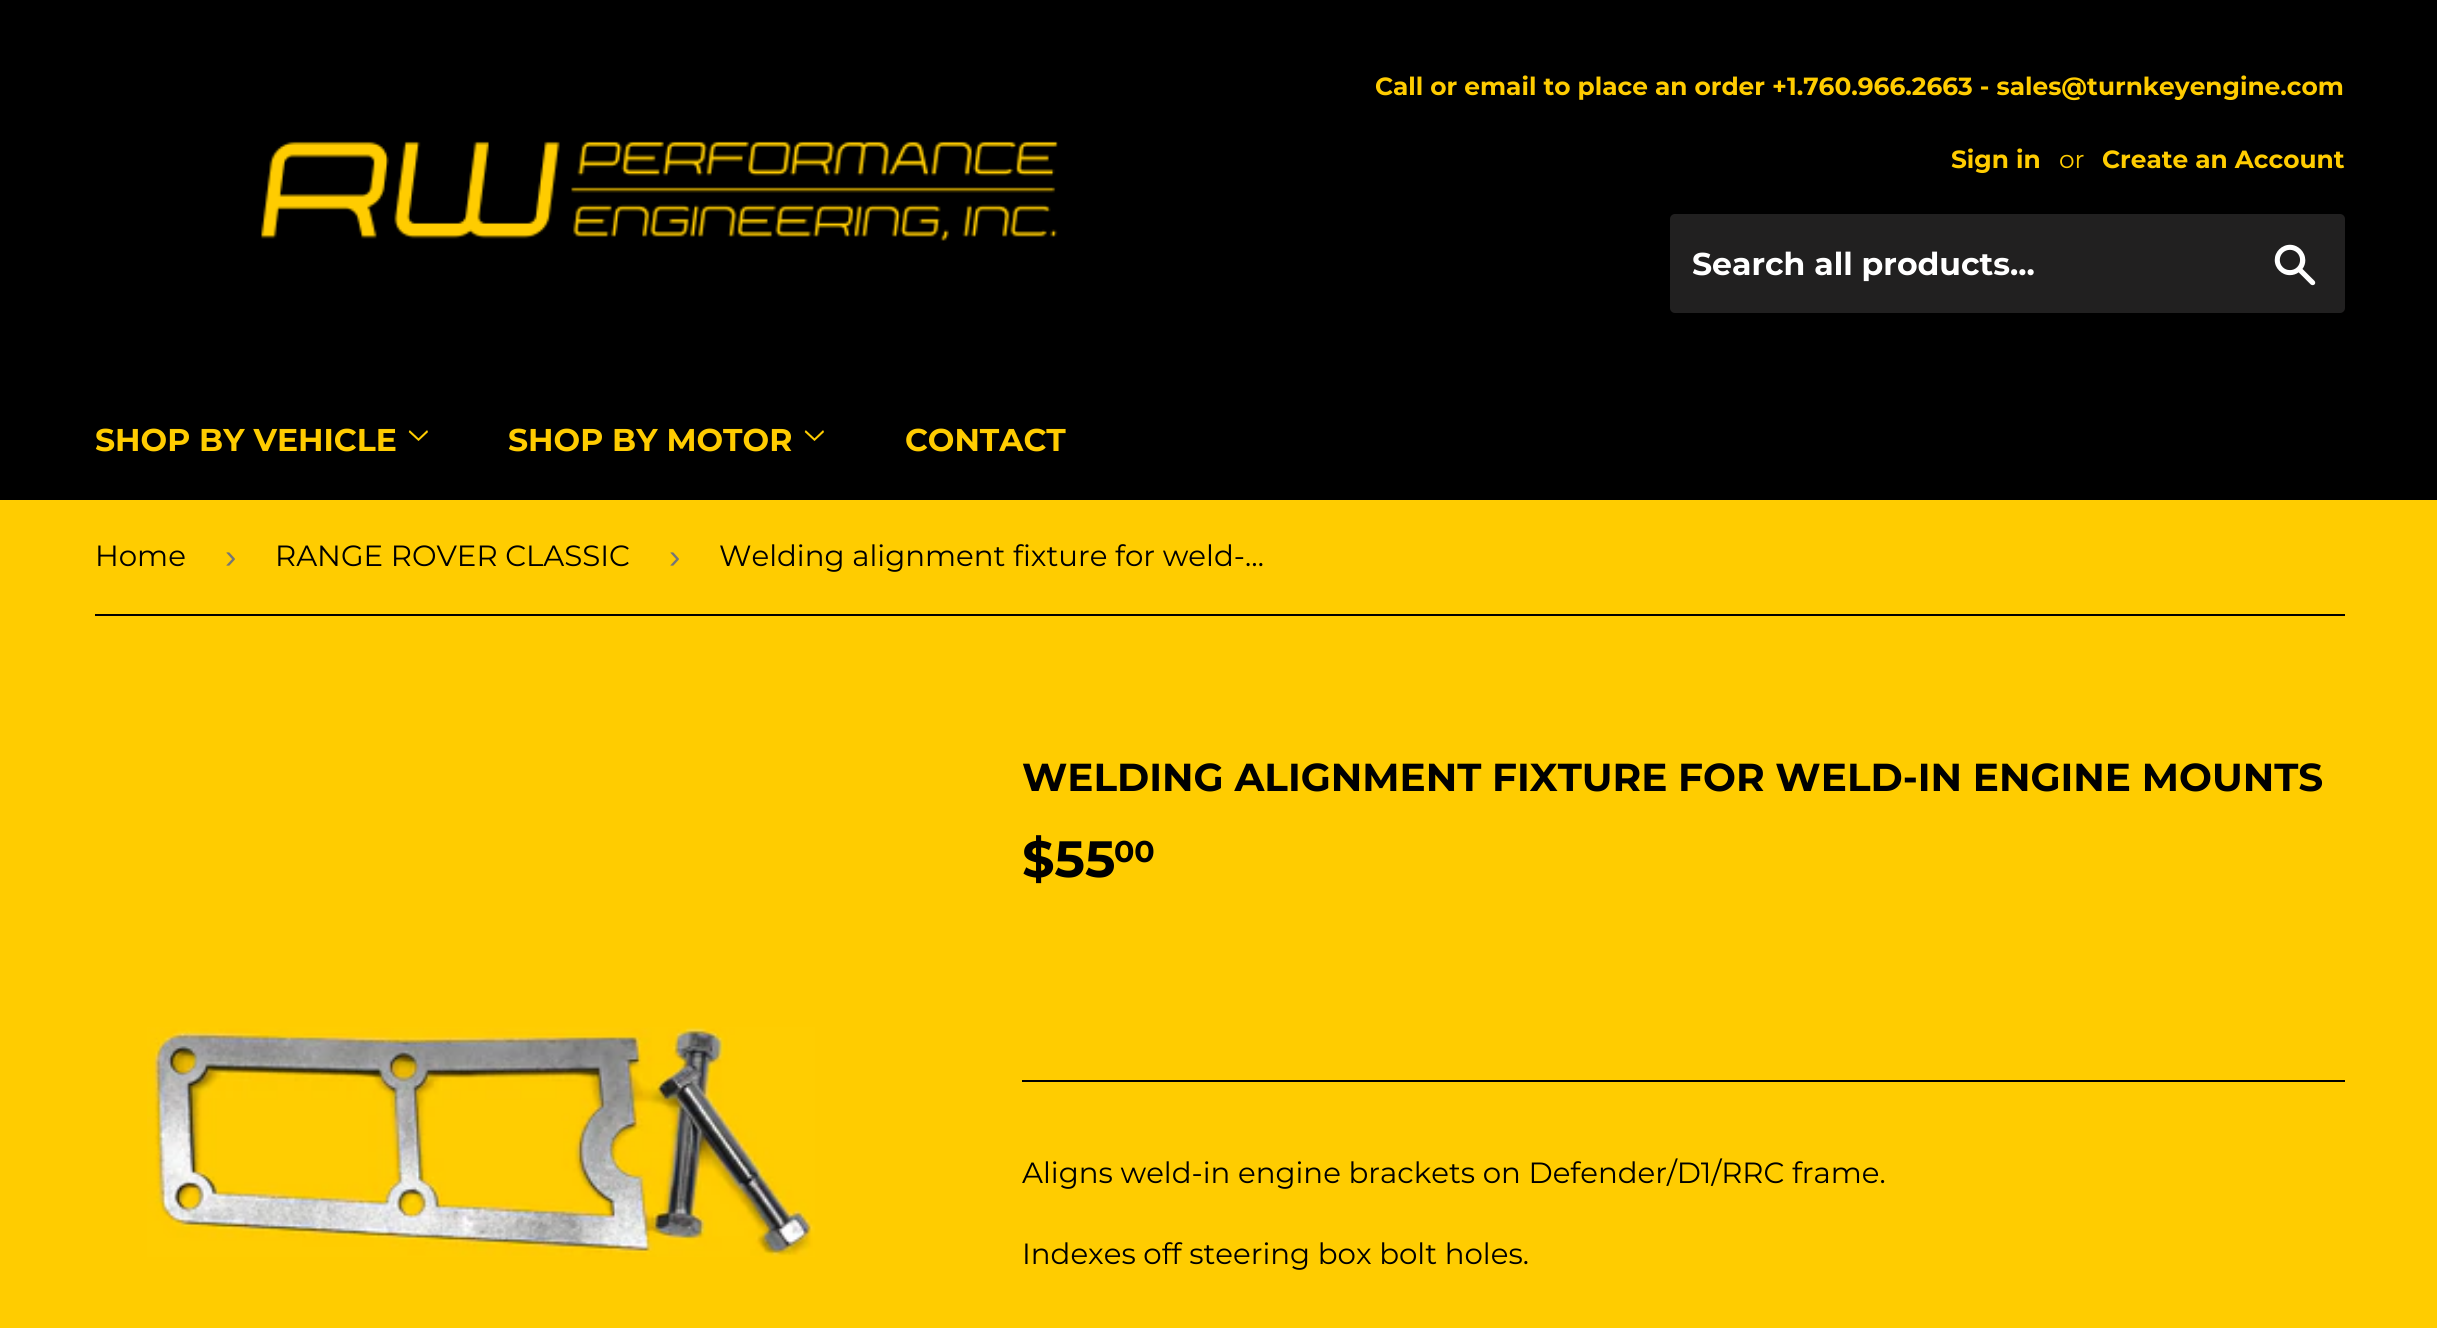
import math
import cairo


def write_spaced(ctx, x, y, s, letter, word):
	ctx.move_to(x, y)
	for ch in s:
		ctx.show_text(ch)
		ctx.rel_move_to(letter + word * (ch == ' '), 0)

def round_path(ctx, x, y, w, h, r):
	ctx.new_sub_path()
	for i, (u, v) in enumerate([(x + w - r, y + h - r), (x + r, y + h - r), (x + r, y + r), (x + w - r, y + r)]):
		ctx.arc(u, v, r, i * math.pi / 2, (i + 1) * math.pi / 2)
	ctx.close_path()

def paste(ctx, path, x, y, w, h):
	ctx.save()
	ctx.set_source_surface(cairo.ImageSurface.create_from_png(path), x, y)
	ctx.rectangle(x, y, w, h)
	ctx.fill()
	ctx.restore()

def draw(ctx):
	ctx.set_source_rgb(1, 0.8, 0)
	ctx.paint()
	ctx.set_source_rgb(0, 0, 0)
	ctx.rectangle(0, 0, 2437, 500)
	ctx.fill()
	paste(ctx, 'media/1.png', 261, 141, 797, 100)
	ctx.select_font_face('Montserrat', cairo.FONT_SLANT_NORMAL, cairo.FONT_WEIGHT_BOLD)
	ctx.set_font_size(24.85)
	ctx.set_source_rgb(1, 0.8, 0)
	ctx.move_to(1375, 95)
	ctx.show_text('Call or email to place an order +1.760.966.2663 - sales@turnkeyengine.com')
	ctx.move_to(1951, 168)
	ctx.show_text('Sign in')
	ctx.select_font_face('Montserrat')
	ctx.move_to(2059, 168)
	ctx.show_text('or')
	ctx.select_font_face('Montserrat', cairo.FONT_SLANT_NORMAL, cairo.FONT_WEIGHT_BOLD)
	ctx.move_to(2102, 168)
	ctx.show_text('Create an Account')
	ctx.set_source_rgb(0.129, 0.125, 0.125)
	round_path(ctx, 1670, 214, 675, 99, 5)
	ctx.fill()
	ctx.set_font_size(31.5)
	ctx.set_source_rgb(1, 1, 1)
	ctx.move_to(1692, 275)
	ctx.show_text('Search all products...')
	paste(ctx, 'media/2.png', 2274, 244, 42, 42)
	ctx.set_source_rgb(1, 0.8, 0)
	ctx.move_to(95, 451)
	ctx.show_text('SHOP BY VEHICLE')
	paste(ctx, 'media/3.png', 408, 430, 20, 11)
	ctx.move_to(508, 451)
	ctx.show_text('SHOP BY MOTOR')
	paste(ctx, 'media/3.png', 804, 430, 20, 11)
	ctx.move_to(905, 451)
	ctx.show_text('CONTACT')
	ctx.set_source_rgb(0, 0, 0)
	ctx.rectangle(95, 614, 2250, 2)
	ctx.fill()
	ctx.select_font_face('Montserrat')
	ctx.set_font_size(29.25)
	ctx.move_to(95, 566)
	ctx.show_text('Home')
	ctx.select_font_face('Liberation Sans')
	ctx.set_font_size(34)
	ctx.set_source_rgb(0.463, 0.463, 0.463)
	ctx.move_to(225, 568)
	ctx.show_text('›')
	ctx.select_font_face('Montserrat')
	ctx.set_font_size(29.25)
	ctx.set_source_rgb(0, 0, 0)
	ctx.move_to(275, 566)
	ctx.show_text('RANGE ROVER CLASSIC')
	ctx.select_font_face('Liberation Sans')
	ctx.set_font_size(34)
	ctx.set_source_rgb(0.463, 0.463, 0.463)
	ctx.move_to(669, 568)
	ctx.show_text('›')
	ctx.select_font_face('Montserrat')
	ctx.set_font_size(29.25)
	ctx.set_source_rgb(0, 0, 0)
	ctx.move_to(719, 566)
	ctx.show_text('Welding alignment fixture for weld-…')
	paste(ctx, 'media/4.png', 147, 1027, 668, 230)
	ctx.select_font_face('Montserrat', cairo.FONT_SLANT_NORMAL, cairo.FONT_WEIGHT_BOLD)
	ctx.set_font_size(39)
	write_spaced(ctx, 1022, 791, 'WELDING ALIGNMENT FIXTURE FOR WELD-IN ENGINE MOUNTS', 0, -0.25)
	ctx.set_font_size(51)
	ctx.move_to(1022, 877)
	ctx.show_text('$55')
	ctx.set_font_size(30)
	ctx.move_to(1114, 862)
	ctx.show_text('00')
	ctx.rectangle(1022, 1080, 1323, 2)
	ctx.fill()
	ctx.select_font_face('Montserrat')
	ctx.set_font_size(29.25)
	ctx.move_to(1022, 1183)
	ctx.show_text('Aligns weld-in engine brackets on Defender/D1/RRC frame.')
	ctx.move_to(1022, 1264)
	ctx.show_text('Indexes off steering box bolt holes.')


surface = cairo.ImageSurface(cairo.FORMAT_RGB24, 2437, 1328)
ctx = cairo.Context(surface)
options = cairo.FontOptions()
options.set_hint_metrics(cairo.HINT_METRICS_OFF)
options.set_hint_style(cairo.HINT_STYLE_NONE)
ctx.set_font_options(options)
ctx.set_miter_limit(4)
draw(ctx)
surface.write_to_png('image.png')
